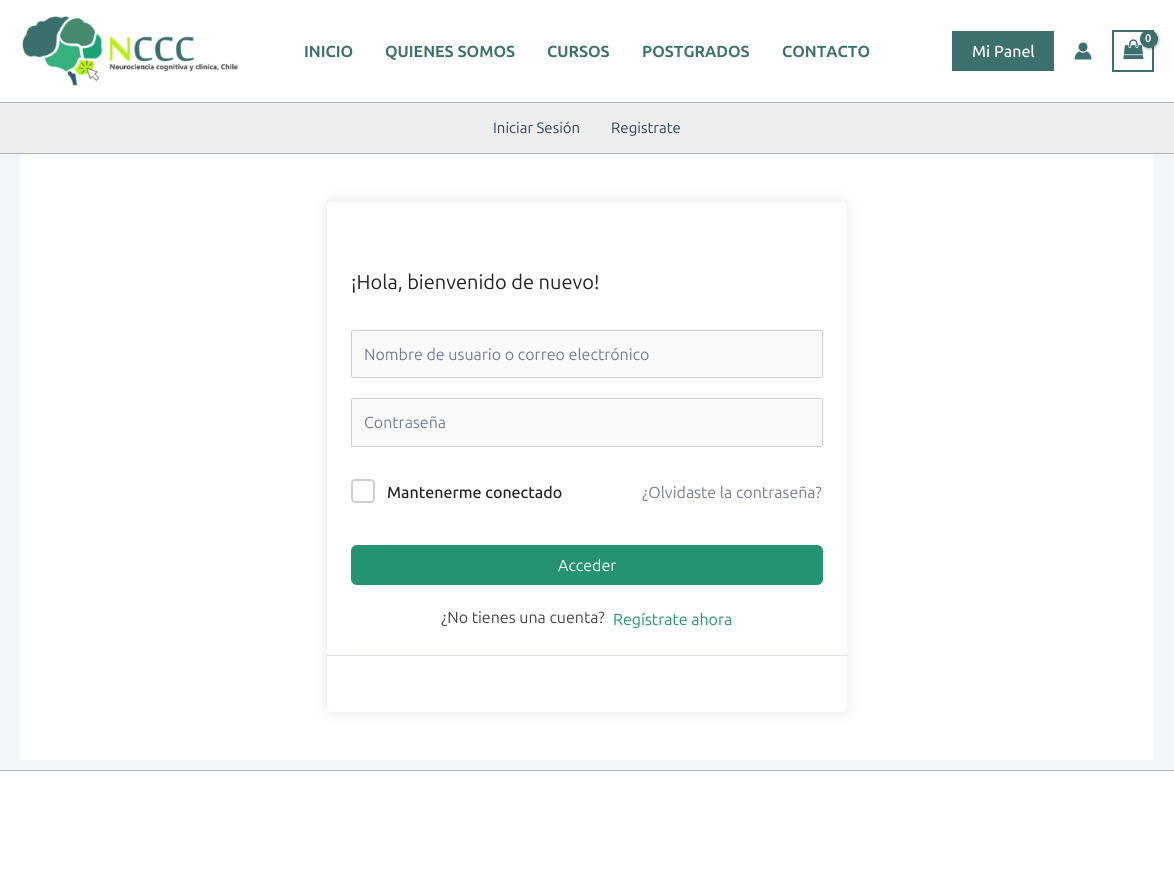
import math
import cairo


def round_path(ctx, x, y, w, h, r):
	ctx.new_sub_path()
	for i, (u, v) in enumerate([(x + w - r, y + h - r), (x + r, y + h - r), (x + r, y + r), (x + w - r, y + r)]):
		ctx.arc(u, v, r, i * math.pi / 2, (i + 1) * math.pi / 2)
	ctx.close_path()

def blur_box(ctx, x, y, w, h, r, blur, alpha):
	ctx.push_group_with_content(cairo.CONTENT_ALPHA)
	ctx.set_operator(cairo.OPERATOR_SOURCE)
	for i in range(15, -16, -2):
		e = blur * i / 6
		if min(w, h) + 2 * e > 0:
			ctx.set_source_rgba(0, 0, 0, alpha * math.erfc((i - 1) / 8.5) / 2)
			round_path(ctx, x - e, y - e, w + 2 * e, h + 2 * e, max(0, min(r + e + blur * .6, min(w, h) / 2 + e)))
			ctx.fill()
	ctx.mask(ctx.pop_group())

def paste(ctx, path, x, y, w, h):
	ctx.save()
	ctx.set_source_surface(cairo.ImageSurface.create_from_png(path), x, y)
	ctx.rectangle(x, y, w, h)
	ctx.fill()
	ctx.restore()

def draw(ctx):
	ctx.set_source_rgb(0.941, 0.961, 0.98)
	ctx.paint()
	ctx.set_source_rgb(1, 1, 1)
	ctx.rectangle(0, 0, 1174, 102)
	ctx.fill()
	ctx.set_source_rgb(0.678, 0.714, 0.745)
	ctx.rectangle(0, 102, 1174, 1)
	ctx.fill()
	paste(ctx, 'media/1.png', 22, 16, 216, 70)
	ctx.select_font_face('Ubuntu', cairo.FONT_SLANT_NORMAL, cairo.FONT_WEIGHT_BOLD)
	ctx.set_font_size(16)
	ctx.set_source_rgb(0.231, 0.439, 0.424)
	for x, y, s in [
		(304, 57, 'INICIO'),
		(385, 57, 'QUIENES SOMOS'),
		(547, 57, 'CURSOS'),
		(642, 57, 'POSTGRADOS'),
		(782, 57, 'CONTACTO'),
	]:
		ctx.move_to(x, y)
		ctx.show_text(s)
	ctx.rectangle(1113, 31, 40, 40)
	ctx.stroke()
	paste(ctx, 'media/2.png', 1123, 39, 21, 20)
	ctx.set_source_rgb(0, 0, 0)
	blur_box(ctx, 1141, 31, 18, 18, 9, 1.5, 0.3)
	ctx.set_source_rgb(0.231, 0.439, 0.424)
	ctx.arc(1149, 39, 9, 0, 2 * math.pi)
	ctx.fill()
	ctx.set_font_size(11)
	ctx.set_source_rgb(1, 1, 1)
	ctx.move_to(1145, 42)
	ctx.show_text('0')
	ctx.set_source_rgb(0.231, 0.439, 0.424)
	ctx.rectangle(952, 31, 102, 40)
	ctx.fill()
	ctx.select_font_face('Ubuntu Medium')
	ctx.set_font_size(16)
	ctx.set_source_rgb(1, 1, 1)
	ctx.move_to(972, 57)
	ctx.show_text('Mi Panel')
	paste(ctx, 'media/3.png', 1074, 42, 18, 18)
	ctx.set_source_rgb(0.933, 0.933, 0.933)
	ctx.rectangle(0, 103, 1174, 50)
	ctx.fill()
	ctx.set_source_rgb(0.678, 0.714, 0.745)
	ctx.rectangle(0, 153, 1174, 1)
	ctx.fill()
	ctx.select_font_face('Ubuntu')
	ctx.set_font_size(15)
	ctx.set_source_rgb(0.2, 0.255, 0.333)
	ctx.move_to(493, 133)
	ctx.show_text('Iniciar Sesión')
	ctx.move_to(611, 133)
	ctx.show_text('Registrate')
	ctx.set_source_rgb(1, 1, 1)
	ctx.rectangle(20, 154, 1134, 606)
	ctx.fill()
	ctx.save()
	ctx.set_fill_rule(cairo.FILL_RULE_EVEN_ODD)
	ctx.new_path()
	ctx.move_to(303, 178)
	ctx.line_to(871, 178)
	ctx.line_to(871, 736)
	ctx.line_to(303, 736)
	ctx.close_path()
	ctx.move_to(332, 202)
	ctx.line_to(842, 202)
	ctx.curve_to(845, 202, 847, 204, 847, 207)
	ctx.line_to(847, 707)
	ctx.curve_to(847, 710, 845, 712, 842, 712)
	ctx.line_to(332, 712)
	ctx.curve_to(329, 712, 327, 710, 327, 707)
	ctx.line_to(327, 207)
	ctx.curve_to(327, 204, 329, 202, 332, 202)
	ctx.close_path()
	ctx.clip()
	ctx.set_source_rgb(0, 0, 0)
	blur_box(ctx, 327, 202, 520, 510, 5, 7.5, 0.1)
	ctx.restore()
	ctx.set_font_size(20)
	ctx.set_source_rgb(0.129, 0.137, 0.153)
	ctx.move_to(351, 289)
	ctx.show_text('¡Hola, bienvenido de nuevo!')
	ctx.set_source_rgb(0.976, 0.98, 0.984)
	round_path(ctx, 351.5, 330.5, 471, 47, 1.5)
	ctx.fill_preserve()
	ctx.set_source_rgb(0.804, 0.812, 0.835)
	ctx.set_line_width(1)
	ctx.stroke()
	ctx.set_font_size(16)
	ctx.set_source_rgb(0.459, 0.486, 0.557)
	ctx.move_to(364, 360)
	ctx.show_text('Nombre de usuario o correo electrónico')
	ctx.set_source_rgb(0.976, 0.98, 0.984)
	round_path(ctx, 351.5, 398.5, 471, 48, 1.5)
	ctx.fill_preserve()
	ctx.set_source_rgb(0.804, 0.812, 0.835)
	ctx.stroke()
	ctx.set_source_rgb(0.459, 0.486, 0.557)
	ctx.move_to(364, 428)
	ctx.show_text('Contraseña')
	round_path(ctx, 352, 480, 22, 22, 3)
	ctx.set_source_rgb(0.804, 0.812, 0.835)
	ctx.set_line_width(2)
	ctx.stroke()
	ctx.select_font_face('Ubuntu Medium')
	ctx.set_source_rgb(0.129, 0.137, 0.153)
	ctx.move_to(387, 498)
	ctx.show_text('Mantenerme conectado')
	ctx.select_font_face('Ubuntu')
	ctx.set_source_rgb(0.459, 0.486, 0.557)
	ctx.move_to(642, 498)
	ctx.show_text('¿Olvidaste la contraseña?')
	ctx.set_source_rgb(0.137, 0.576, 0.443)
	round_path(ctx, 351.5, 545.5, 471, 39, 5.5)
	ctx.fill_preserve()
	ctx.set_line_width(1)
	ctx.stroke()
	ctx.set_source_rgb(1, 1, 1)
	ctx.move_to(558, 571)
	ctx.show_text('Acceder')
	ctx.set_source_rgb(0.255, 0.271, 0.31)
	ctx.move_to(441, 623)
	ctx.show_text('¿No tienes una cuenta?')
	ctx.set_source_rgb(0.137, 0.576, 0.443)
	ctx.move_to(613, 625)
	ctx.show_text('Regístrate ahora')
	ctx.set_source_rgb(0.878, 0.886, 0.918)
	ctx.rectangle(327, 655, 520, 1)
	ctx.fill()
	ctx.set_source_rgb(1, 1, 1)
	ctx.rectangle(0, 771, 1174, 100)
	ctx.fill()
	ctx.set_source_rgb(0.678, 0.714, 0.745)
	ctx.rectangle(0, 770, 1174, 1)
	ctx.fill()


surface = cairo.ImageSurface(cairo.FORMAT_RGB24, 1174, 871)
ctx = cairo.Context(surface)
options = cairo.FontOptions()
options.set_hint_metrics(cairo.HINT_METRICS_OFF)
options.set_hint_style(cairo.HINT_STYLE_NONE)
ctx.set_font_options(options)
ctx.set_miter_limit(4)
draw(ctx)
surface.write_to_png('image.png')
